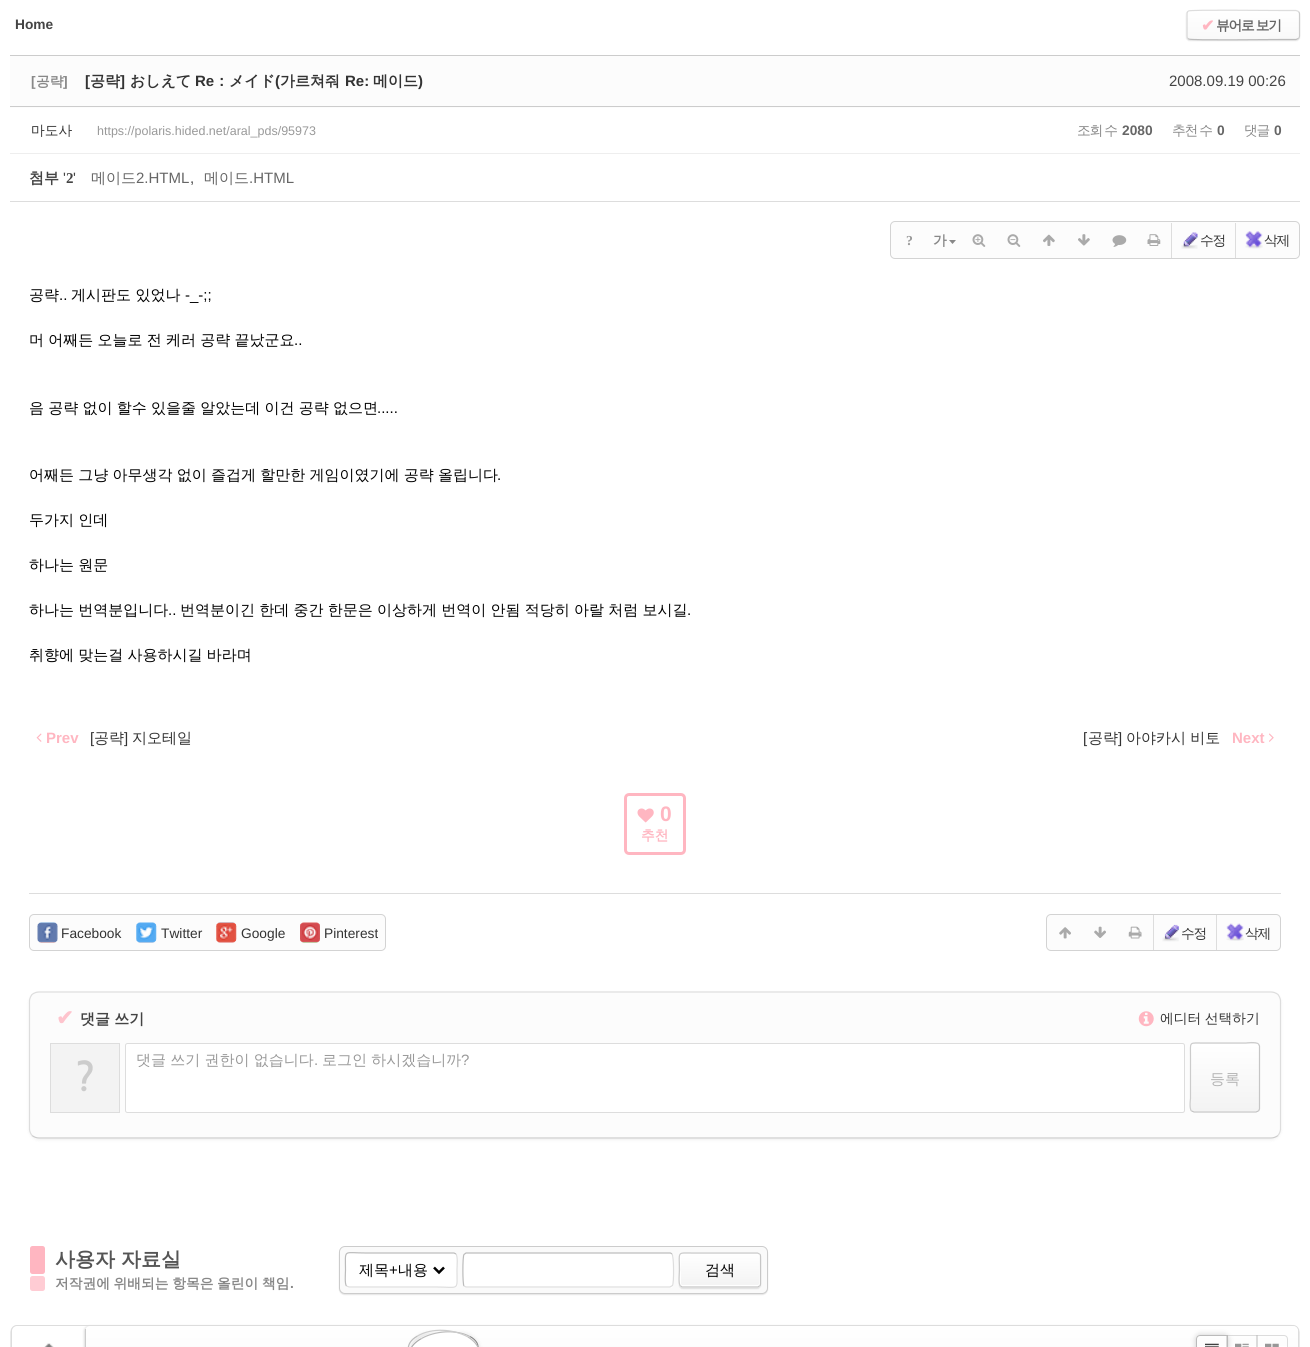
import math
import cairo


def write_spaced(ctx, x, y, s, letter, word):
	ctx.move_to(x, y)
	for ch in s:
		ctx.show_text(ch)
		ctx.rel_move_to(letter + word * (ch == ' '), 0)

def round_path(ctx, x, y, w, h, r):
	ctx.new_sub_path()
	for i, (u, v) in enumerate([(x + w - r, y + h - r), (x + r, y + h - r), (x + r, y + r), (x + w - r, y + r)]):
		ctx.arc(u, v, r, i * math.pi / 2, (i + 1) * math.pi / 2)
	ctx.close_path()

def blur_box(ctx, x, y, w, h, r, blur, alpha):
	ctx.push_group_with_content(cairo.CONTENT_ALPHA)
	ctx.set_operator(cairo.OPERATOR_SOURCE)
	for i in range(15, -16, -2):
		e = blur * i / 6
		if min(w, h) + 2 * e > 0:
			ctx.set_source_rgba(0, 0, 0, alpha * math.erfc((i - 1) / 8.5) / 2)
			round_path(ctx, x - e, y - e, w + 2 * e, h + 2 * e, max(0, min(r + e + blur * .6, min(w, h) / 2 + e)))
			ctx.fill()
	ctx.mask(ctx.pop_group())

def paste(ctx, path, x, y, w, h):
	ctx.save()
	ctx.set_source_surface(cairo.ImageSurface.create_from_png(path), x, y)
	ctx.rectangle(x, y, w, h)
	ctx.fill()
	ctx.restore()

def draw(ctx):
	ctx.set_source_rgb(1, 1, 1)
	ctx.paint()
	ctx.select_font_face('Liberation Sans', cairo.FONT_SLANT_NORMAL, cairo.FONT_WEIGHT_BOLD)
	ctx.set_font_size(13.75)
	ctx.set_source_rgb(0.267, 0.267, 0.267)
	ctx.move_to(15, 29)
	ctx.show_text('Home')
	ctx.set_source_rgb(0, 0, 0)
	blur_box(ctx, 1186, 11, 114, 30, 4, 0.5, 0.1)
	ctx.save()
	round_path(ctx, 1186, 10, 114, 30, 4)
	ctx.clip()
	gradient = cairo.LinearGradient(1243, -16, 1243, 11)
	gradient.add_color_stop_rgba(0, 1, 1, 1, 1)
	gradient.add_color_stop_rgba(1, 0.976, 0.976, 0.976, 1)
	ctx.set_source(gradient)
	ctx.rectangle(1186, 10, 114, 1)
	ctx.fill()
	gradient = cairo.LinearGradient(1243, 11, 1243, 39)
	gradient.add_color_stop_rgba(0, 1, 1, 1, 1)
	gradient.add_color_stop_rgba(1, 0.976, 0.976, 0.976, 1)
	ctx.set_source(gradient)
	ctx.rectangle(1186, 11, 114, 28)
	ctx.fill()
	gradient = cairo.LinearGradient(1243, 39, 1243, 66)
	gradient.add_color_stop_rgba(0, 1, 1, 1, 1)
	gradient.add_color_stop_rgba(1, 0.976, 0.976, 0.976, 1)
	ctx.set_source(gradient)
	ctx.rectangle(1186, 39, 114, 1)
	ctx.fill()
	ctx.restore()
	ctx.new_path()
	ctx.move_to(1188, 11.5)
	ctx.line_to(1188.5, 11)
	ctx.curve_to(1190.5, 9.5, 1269, 10.5, 1278.5, 10.5)
	ctx.line_to(1296, 10.5)
	ctx.line_to(1298.5, 11.5)
	ctx.set_source_rgb(0.867, 0.867, 0.867)
	ctx.set_line_width(1.2)
	ctx.stroke()
	ctx.new_path()
	ctx.move_to(1298.5, 11.5)
	ctx.curve_to(1299, 12, 1299.5, 13, 1299.5, 14)
	ctx.line_to(1299.5, 36)
	ctx.curve_to(1299.5, 37, 1299, 38, 1298.5, 38.5)
	ctx.set_source_rgb(0.8, 0.8, 0.8)
	ctx.stroke()
	ctx.new_path()
	ctx.move_to(1298.5, 38.5)
	ctx.line_to(1296, 39.5)
	ctx.line_to(1278.5, 39.5)
	ctx.curve_to(1269, 39.5, 1190.5, 40.5, 1188.5, 39)
	ctx.line_to(1188, 38.5)
	ctx.set_source_rgb(0.733, 0.733, 0.733)
	ctx.stroke()
	ctx.new_path()
	ctx.move_to(1188, 38.5)
	ctx.curve_to(1187, 38, 1187, 37, 1187, 36)
	ctx.line_to(1187, 14)
	ctx.curve_to(1187, 13, 1187, 12, 1188, 11.5)
	ctx.set_source_rgb(0.839, 0.839, 0.839)
	ctx.stroke()
	ctx.select_font_face('DejaVu Sans', cairo.FONT_SLANT_NORMAL, cairo.FONT_WEIGHT_BOLD)
	ctx.set_font_size(16)
	ctx.set_source_rgb(1, 0.714, 0.757)
	write_spaced(ctx, 1201, 31, '✔', -1.25, 0)
	ctx.select_font_face('WenQuanYi Zen Hei', cairo.FONT_SLANT_NORMAL, cairo.FONT_WEIGHT_BOLD)
	ctx.set_font_size(13.75)
	ctx.set_source_rgb(0.4, 0.4, 0.4)
	write_spaced(ctx, 1216, 30, '뷰어로 보기', -1.25, -0.5)
	ctx.set_source_rgb(0.988, 0.988, 0.988)
	ctx.rectangle(10, 56, 1290, 52)
	ctx.fill()
	ctx.set_source_rgb(0.8, 0.8, 0.8)
	ctx.rectangle(10, 55, 1290, 1)
	ctx.rectangle(10, 106, 1290, 1)
	ctx.fill()
	ctx.select_font_face('Liberation Sans', cairo.FONT_SLANT_NORMAL, cairo.FONT_WEIGHT_BOLD)
	ctx.set_source_rgb(0.533, 0.533, 0.533)
	ctx.move_to(31, 86)
	ctx.show_text('[')
	ctx.select_font_face('WenQuanYi Zen Hei', cairo.FONT_SLANT_NORMAL, cairo.FONT_WEIGHT_BOLD)
	ctx.move_to(36, 86)
	ctx.show_text('공략')
	ctx.select_font_face('Liberation Sans', cairo.FONT_SLANT_NORMAL, cairo.FONT_WEIGHT_BOLD)
	ctx.move_to(63, 86)
	ctx.show_text(']')
	ctx.set_font_size(15)
	ctx.set_source_rgb(0.2, 0.2, 0.2)
	ctx.move_to(85, 86)
	ctx.show_text('[')
	ctx.select_font_face('WenQuanYi Zen Hei', cairo.FONT_SLANT_NORMAL, cairo.FONT_WEIGHT_BOLD)
	ctx.move_to(90, 86)
	ctx.show_text('공략')
	ctx.select_font_face('Liberation Sans', cairo.FONT_SLANT_NORMAL, cairo.FONT_WEIGHT_BOLD)
	ctx.move_to(120, 86)
	ctx.show_text(']')
	ctx.select_font_face('WenQuanYi Zen Hei', cairo.FONT_SLANT_NORMAL, cairo.FONT_WEIGHT_BOLD)
	ctx.move_to(130, 86)
	ctx.show_text('おしえて')
	ctx.select_font_face('Liberation Sans', cairo.FONT_SLANT_NORMAL, cairo.FONT_WEIGHT_BOLD)
	ctx.move_to(195, 86)
	ctx.show_text('Re')
	ctx.select_font_face('WenQuanYi Zen Hei', cairo.FONT_SLANT_NORMAL, cairo.FONT_WEIGHT_BOLD)
	ctx.move_to(214, 86)
	ctx.show_text('：メイド')
	ctx.select_font_face('Liberation Sans', cairo.FONT_SLANT_NORMAL, cairo.FONT_WEIGHT_BOLD)
	ctx.move_to(275, 86)
	ctx.show_text('(')
	ctx.select_font_face('WenQuanYi Zen Hei', cairo.FONT_SLANT_NORMAL, cairo.FONT_WEIGHT_BOLD)
	ctx.move_to(280, 86)
	ctx.show_text('가르쳐줘')
	ctx.select_font_face('Liberation Sans', cairo.FONT_SLANT_NORMAL, cairo.FONT_WEIGHT_BOLD)
	ctx.move_to(345, 86)
	ctx.show_text('Re:')
	ctx.select_font_face('WenQuanYi Zen Hei', cairo.FONT_SLANT_NORMAL, cairo.FONT_WEIGHT_BOLD)
	ctx.move_to(373, 86)
	ctx.show_text('메이드')
	ctx.select_font_face('Liberation Sans', cairo.FONT_SLANT_NORMAL, cairo.FONT_WEIGHT_BOLD)
	ctx.move_to(418, 86)
	ctx.show_text(')')
	ctx.select_font_face('Liberation Sans')
	ctx.set_source_rgb(0.267, 0.267, 0.267)
	ctx.move_to(1169, 86)
	ctx.show_text('2008.09.19 00:26')
	ctx.set_source_rgb(0.933, 0.933, 0.933)
	ctx.rectangle(10, 153, 1290, 1)
	ctx.fill()
	ctx.select_font_face('WenQuanYi Zen Hei Medium')
	ctx.set_font_size(13.75)
	ctx.set_source_rgb(0.2, 0.2, 0.2)
	ctx.move_to(31, 135)
	ctx.show_text('마도사')
	ctx.select_font_face('Liberation Sans')
	ctx.set_font_size(12.5)
	ctx.set_source_rgb(0.6, 0.6, 0.6)
	ctx.move_to(97, 135)
	ctx.show_text('https://polaris.hided.net/aral_pds/95973')
	ctx.select_font_face('WenQuanYi Zen Hei Medium')
	ctx.set_font_size(13.75)
	ctx.set_source_rgb(0.533, 0.533, 0.533)
	write_spaced(ctx, 1077, 135, '조회 수', -1.25, -0.5)
	ctx.select_font_face('Liberation Sans', cairo.FONT_SLANT_NORMAL, cairo.FONT_WEIGHT_BOLD)
	ctx.set_source_rgb(0.4, 0.4, 0.4)
	ctx.move_to(1122, 135)
	ctx.show_text('2080')
	ctx.select_font_face('WenQuanYi Zen Hei Medium')
	ctx.set_source_rgb(0.533, 0.533, 0.533)
	write_spaced(ctx, 1172, 135, '추천 수', -1.25, -0.5)
	ctx.select_font_face('Liberation Sans', cairo.FONT_SLANT_NORMAL, cairo.FONT_WEIGHT_BOLD)
	ctx.set_source_rgb(0.4, 0.4, 0.4)
	ctx.move_to(1217, 135)
	ctx.show_text('0')
	ctx.select_font_face('WenQuanYi Zen Hei Medium')
	ctx.set_source_rgb(0.533, 0.533, 0.533)
	write_spaced(ctx, 1244, 135, '댓글', -1.25, 0)
	ctx.select_font_face('Liberation Sans', cairo.FONT_SLANT_NORMAL, cairo.FONT_WEIGHT_BOLD)
	ctx.set_source_rgb(0.4, 0.4, 0.4)
	ctx.move_to(1274, 135)
	ctx.show_text('0')
	ctx.set_source_rgb(0.867, 0.867, 0.867)
	ctx.rectangle(10, 201, 1290, 1)
	ctx.fill()
	ctx.select_font_face('WenQuanYi Zen Hei', cairo.FONT_SLANT_NORMAL, cairo.FONT_WEIGHT_BOLD)
	ctx.set_font_size(15)
	ctx.set_source_rgb(0.267, 0.267, 0.267)
	ctx.move_to(29, 183)
	ctx.show_text('첨부')
	ctx.select_font_face('Liberation Sans')
	ctx.move_to(63, 183)
	ctx.show_text('\'')
	ctx.select_font_face('Liberation Serif', cairo.FONT_SLANT_NORMAL, cairo.FONT_WEIGHT_BOLD)
	ctx.move_to(66, 183)
	ctx.show_text('2')
	ctx.select_font_face('Liberation Sans')
	ctx.move_to(73, 183)
	ctx.show_text('\'')
	ctx.select_font_face('WenQuanYi Zen Hei Medium')
	ctx.set_source_rgb(0.4, 0.4, 0.4)
	ctx.move_to(91, 183)
	ctx.show_text('메이드')
	ctx.select_font_face('Liberation Sans')
	ctx.move_to(136, 183)
	ctx.show_text('2.HTML')
	ctx.set_source_rgb(0.267, 0.267, 0.267)
	ctx.move_to(190, 183)
	ctx.show_text(',')
	ctx.select_font_face('WenQuanYi Zen Hei Medium')
	ctx.set_source_rgb(0.4, 0.4, 0.4)
	ctx.move_to(204, 183)
	ctx.show_text('메이드')
	ctx.select_font_face('Liberation Sans')
	ctx.move_to(249, 183)
	ctx.show_text('.HTML')
	ctx.set_source_rgb(0.988, 0.988, 0.988)
	round_path(ctx, 890.5, 221.5, 409, 37, 4.5)
	ctx.fill_preserve()
	ctx.set_source_rgb(0.827, 0.827, 0.827)
	ctx.set_line_width(1)
	ctx.stroke()
	ctx.select_font_face('Liberation Serif', cairo.FONT_SLANT_NORMAL, cairo.FONT_WEIGHT_BOLD)
	ctx.set_font_size(13.75)
	ctx.set_source_rgb(0.6, 0.6, 0.6)
	write_spaced(ctx, 906, 245, '?', -1.25, 0)
	ctx.select_font_face('WenQuanYi Zen Hei', cairo.FONT_SLANT_NORMAL, cairo.FONT_WEIGHT_BOLD)
	ctx.set_source_rgb(0.533, 0.533, 0.533)
	write_spaced(ctx, 933, 245, '가', -1.25, 0)
	ctx.new_path()
	ctx.move_to(949, 240)
	ctx.line_to(956, 240)
	ctx.line_to(952.5, 244)
	ctx.close_path()
	ctx.fill()
	paste(ctx, 'media/1.png', 972, 234, 14, 13)
	paste(ctx, 'media/2.png', 1007, 234, 14, 13)
	paste(ctx, 'media/3.png', 1043, 234, 12, 12)
	paste(ctx, 'media/4.png', 1078, 234, 12, 12)
	paste(ctx, 'media/5.png', 1112, 235, 15, 12)
	paste(ctx, 'media/6.png', 1147, 234, 14, 12)
	ctx.set_source_rgb(0.867, 0.867, 0.867)
	ctx.rectangle(1171, 223, 1, 35)
	ctx.fill()
	paste(ctx, 'media/7.png', 1181, 232, 17, 17)
	ctx.select_font_face('WenQuanYi Zen Hei Medium')
	ctx.set_source_rgb(0.2, 0.2, 0.2)
	write_spaced(ctx, 1200, 245, '수정', -1.25, 0)
	ctx.set_source_rgb(0.867, 0.867, 0.867)
	ctx.rectangle(1235, 223, 1, 35)
	ctx.fill()
	paste(ctx, 'media/8.png', 1245, 231, 18, 18)
	ctx.set_source_rgb(0.2, 0.2, 0.2)
	write_spaced(ctx, 1264, 245, '삭제', -1.25, 0)
	ctx.set_font_size(15)
	ctx.set_source_rgb(0, 0, 0)
	ctx.move_to(29, 300)
	ctx.show_text('공략')
	ctx.select_font_face('Liberation Sans')
	ctx.move_to(59, 300)
	ctx.show_text('..')
	ctx.select_font_face('WenQuanYi Zen Hei Medium')
	ctx.move_to(71, 300)
	ctx.show_text('게시판도 있었나')
	ctx.select_font_face('Liberation Sans')
	ctx.move_to(185, 300)
	ctx.show_text('-_-;;')
	ctx.select_font_face('WenQuanYi Zen Hei Medium')
	write_spaced(ctx, 29, 345, '머 어째든 오늘로 전 케러 공략 끝났군요', 0, -0.25)
	ctx.select_font_face('Liberation Sans')
	ctx.move_to(294, 345)
	ctx.show_text('..')
	ctx.select_font_face('WenQuanYi Zen Hei Medium')
	write_spaced(ctx, 29, 413, '음 공략 없이 할수 있을줄 알았는데 이건 공략 없으면', 0, -0.25)
	ctx.select_font_face('Liberation Sans')
	ctx.move_to(377, 413)
	ctx.show_text('.....')
	ctx.select_font_face('WenQuanYi Zen Hei Medium')
	write_spaced(ctx, 29, 480, '어째든 그냥 아무생각 없이 즐겁게 할만한 게임이였기에 공략 올립니다', 0, -0.25)
	ctx.select_font_face('Liberation Sans')
	ctx.move_to(497, 480)
	ctx.show_text('.')
	ctx.select_font_face('WenQuanYi Zen Hei Medium')
	for x, y, s in [
		(29, 525, '두가지 인데'),
		(29, 570, '하나는 원문'),
		(29, 615, '하나는 번역분입니다'),
	]:
		write_spaced(ctx, x, y, s, 0, -0.25)
	ctx.select_font_face('Liberation Sans')
	ctx.move_to(168, 615)
	ctx.show_text('..')
	ctx.select_font_face('WenQuanYi Zen Hei Medium')
	write_spaced(ctx, 180, 615, '번역분이긴 한데 중간 한문은 이상하게 번역이 안됨 적당히 아랄 처럼 보시길', 0, -0.25)
	ctx.select_font_face('Liberation Sans')
	ctx.move_to(687, 615)
	ctx.show_text('.')
	ctx.select_font_face('WenQuanYi Zen Hei Medium')
	write_spaced(ctx, 29, 660, '취향에 맞는걸 사용하시길 바라며', 0, -0.25)
	paste(ctx, 'media/9.png', 36, 733, 6, 9)
	ctx.select_font_face('Liberation Sans', cairo.FONT_SLANT_NORMAL, cairo.FONT_WEIGHT_BOLD)
	ctx.set_source_rgb(1, 0.714, 0.757)
	ctx.move_to(46, 743)
	ctx.show_text('Prev')
	ctx.select_font_face('Liberation Sans')
	ctx.set_source_rgb(0.2, 0.2, 0.2)
	ctx.move_to(90, 743)
	ctx.show_text('[')
	ctx.select_font_face('WenQuanYi Zen Hei Medium')
	ctx.move_to(94, 743)
	ctx.show_text('공략')
	ctx.select_font_face('Liberation Sans')
	ctx.move_to(124, 743)
	ctx.show_text(']')
	ctx.select_font_face('WenQuanYi Zen Hei Medium')
	ctx.move_to(132, 743)
	ctx.show_text('지오테일')
	ctx.select_font_face('Liberation Sans')
	ctx.move_to(1083, 743)
	ctx.show_text('[')
	ctx.select_font_face('WenQuanYi Zen Hei Medium')
	ctx.move_to(1088, 743)
	ctx.show_text('공략')
	ctx.select_font_face('Liberation Sans')
	ctx.move_to(1118, 743)
	ctx.show_text(']')
	ctx.select_font_face('WenQuanYi Zen Hei Medium')
	write_spaced(ctx, 1126, 743, '아야카시 비토', 0, -0.25)
	ctx.select_font_face('Liberation Sans', cairo.FONT_SLANT_NORMAL, cairo.FONT_WEIGHT_BOLD)
	ctx.set_source_rgb(1, 0.714, 0.757)
	ctx.move_to(1232, 743)
	ctx.show_text('Next')
	paste(ctx, 'media/10.png', 1269, 733, 5, 9)
	round_path(ctx, 625.5, 794.5, 59, 59, 3.5)
	ctx.set_line_width(3)
	ctx.stroke()
	paste(ctx, 'media/11.png', 637, 808, 17, 15)
	ctx.set_font_size(21)
	ctx.move_to(660, 821)
	ctx.show_text('0')
	ctx.select_font_face('WenQuanYi Zen Hei', cairo.FONT_SLANT_NORMAL, cairo.FONT_WEIGHT_BOLD)
	ctx.set_font_size(13.75)
	ctx.move_to(641, 840)
	ctx.show_text('추천')
	ctx.set_source_rgb(0.867, 0.867, 0.867)
	ctx.rectangle(29, 893, 1252, 1)
	ctx.fill()
	ctx.set_source_rgb(0.988, 0.988, 0.988)
	round_path(ctx, 29.5, 914.5, 356, 36, 4.5)
	ctx.fill_preserve()
	ctx.set_source_rgb(0.827, 0.827, 0.827)
	ctx.set_line_width(1)
	ctx.stroke()
	paste(ctx, 'media/12.png', 37, 922, 21, 21)
	ctx.select_font_face('Liberation Sans')
	ctx.set_source_rgb(0.2, 0.2, 0.2)
	ctx.move_to(61, 938)
	ctx.show_text('Facebook')
	paste(ctx, 'media/13.png', 136, 922, 21, 21)
	ctx.move_to(161, 938)
	ctx.show_text('Twitter')
	paste(ctx, 'media/14.png', 216, 922, 21, 21)
	ctx.move_to(241, 938)
	ctx.show_text('Google')
	paste(ctx, 'media/15.png', 300, 922, 20, 21)
	ctx.move_to(324, 938)
	ctx.show_text('Pinterest')
	ctx.set_source_rgb(0.988, 0.988, 0.988)
	round_path(ctx, 1046.5, 914.5, 234, 36, 4.5)
	ctx.fill_preserve()
	ctx.set_source_rgb(0.827, 0.827, 0.827)
	ctx.stroke()
	paste(ctx, 'media/16.png', 1059, 927, 12, 12)
	paste(ctx, 'media/17.png', 1094, 926, 12, 12)
	paste(ctx, 'media/18.png', 1128, 926, 14, 13)
	ctx.set_source_rgb(0.867, 0.867, 0.867)
	ctx.rectangle(1153, 915, 1, 35)
	ctx.fill()
	paste(ctx, 'media/19.png', 1162, 924, 17, 18)
	ctx.select_font_face('WenQuanYi Zen Hei Medium')
	ctx.set_source_rgb(0.2, 0.2, 0.2)
	write_spaced(ctx, 1181, 938, '수정', -1.25, 0)
	ctx.set_source_rgb(0.867, 0.867, 0.867)
	ctx.rectangle(1216, 915, 1, 35)
	ctx.fill()
	paste(ctx, 'media/20.png', 1226, 923, 18, 18)
	ctx.set_source_rgb(0.2, 0.2, 0.2)
	write_spaced(ctx, 1245, 938, '삭제', -1.25, 0)
	ctx.set_source_rgb(0, 0, 0)
	blur_box(ctx, 30, 994, 1250, 145, 9, 2, 0.1)
	ctx.set_source_rgb(0.988, 0.988, 0.988)
	round_path(ctx, 29, 991, 1252, 148, 10)
	ctx.fill()
	ctx.new_path()
	ctx.move_to(1278, 1135.5)
	ctx.curve_to(1276, 1137, 1273.5, 1138, 1271, 1138)
	ctx.line_to(39, 1138)
	ctx.curve_to(36.5, 1138, 34, 1137, 32, 1135.5)
	ctx.set_source_rgb(0.8, 0.8, 0.8)
	ctx.set_line_width(1.2)
	ctx.stroke()
	ctx.new_path()
	ctx.move_to(32, 1135.5)
	ctx.curve_to(30.5, 1133.5, 29.5, 1131, 29.5, 1129)
	ctx.line_to(29.5, 1001)
	ctx.curve_to(29.5, 999, 30.5, 996.5, 32, 994.5)
	ctx.curve_to(34, 993, 36.5, 992, 39, 992)
	ctx.line_to(1271, 992)
	ctx.curve_to(1273.5, 992, 1276, 993, 1278, 994.5)
	ctx.curve_to(1279.5, 996.5, 1280.5, 999, 1280.5, 1001)
	ctx.line_to(1280.5, 1129)
	ctx.curve_to(1280.5, 1131, 1279.5, 1133.5, 1278, 1135.5)
	ctx.set_source_rgb(0.867, 0.867, 0.867)
	ctx.stroke()
	ctx.select_font_face('DejaVu Sans', cairo.FONT_SLANT_NORMAL, cairo.FONT_WEIGHT_BOLD)
	ctx.set_font_size(21)
	ctx.set_source_rgb(0.996, 0.769, 0.804)
	ctx.move_to(56, 1025)
	ctx.show_text('✔')
	ctx.select_font_face('WenQuanYi Zen Hei', cairo.FONT_SLANT_NORMAL, cairo.FONT_WEIGHT_BOLD)
	ctx.set_font_size(15)
	ctx.set_source_rgb(0.267, 0.267, 0.267)
	write_spaced(ctx, 80, 1024, '댓글 쓰기', 0, -0.25)
	paste(ctx, 'media/21.png', 1138, 1011, 16, 16)
	ctx.select_font_face('WenQuanYi Zen Hei Medium')
	ctx.set_font_size(13.75)
	ctx.set_source_rgb(0.2, 0.2, 0.2)
	write_spaced(ctx, 1160, 1023, '에디터 선택하기', 0, -0.5)
	ctx.set_source_rgb(0.953, 0.953, 0.953)
	ctx.rectangle(50.5, 1043.5, 69, 69)
	ctx.fill_preserve()
	ctx.set_source_rgb(0.867, 0.867, 0.867)
	ctx.set_line_width(1)
	ctx.stroke()
	ctx.select_font_face('NanumGothic', cairo.FONT_SLANT_NORMAL, cairo.FONT_WEIGHT_BOLD)
	ctx.set_font_size(40)
	ctx.set_source_rgb(0.8, 0.8, 0.8)
	ctx.move_to(74, 1091)
	ctx.show_text('?')
	ctx.set_source_rgb(1, 1, 1)
	round_path(ctx, 125.5, 1043.5, 1059, 69, 2)
	ctx.fill_preserve()
	ctx.set_source_rgb(0.867, 0.867, 0.867)
	ctx.stroke()
	ctx.select_font_face('WenQuanYi Zen Hei Medium')
	ctx.set_font_size(15)
	ctx.set_source_rgb(0.6, 0.6, 0.6)
	write_spaced(ctx, 136, 1065, '댓글 쓰기 권한이 없습니다', 0, -0.25)
	ctx.select_font_face('Liberation Sans')
	ctx.move_to(314, 1065)
	ctx.show_text('.')
	ctx.select_font_face('WenQuanYi Zen Hei Medium')
	write_spaced(ctx, 322, 1065, '로그인 하시겠습니까', 0, -0.25)
	ctx.select_font_face('Liberation Sans')
	ctx.move_to(461, 1065)
	ctx.show_text('?')
	ctx.save()
	round_path(ctx, 1190, 1043, 70, 70, 4)
	ctx.clip()
	gradient = cairo.LinearGradient(1225, 976, 1225, 1044)
	gradient.add_color_stop_rgba(0, 1, 1, 1, 1)
	gradient.add_color_stop_rgba(1, 0.953, 0.953, 0.953, 1)
	ctx.set_source(gradient)
	ctx.rectangle(1190, 1043, 70, 1)
	ctx.fill()
	gradient = cairo.LinearGradient(1225, 1044, 1225, 1111)
	gradient.add_color_stop_rgba(0, 1, 1, 1, 1)
	gradient.add_color_stop_rgba(1, 0.953, 0.953, 0.953, 1)
	ctx.set_source(gradient)
	ctx.rectangle(1190, 1044, 70, 67)
	ctx.fill()
	gradient = cairo.LinearGradient(1225, 1111, 1225, 1179)
	gradient.add_color_stop_rgba(0, 1, 1, 1, 1)
	gradient.add_color_stop_rgba(1, 0.953, 0.953, 0.953, 1)
	ctx.set_source(gradient)
	ctx.rectangle(1190, 1111, 70, 2)
	ctx.fill()
	ctx.restore()
	ctx.new_path()
	ctx.move_to(1258.5, 1044)
	ctx.line_to(1259.5, 1046)
	ctx.line_to(1259.5, 1109)
	ctx.line_to(1258.5, 1111)
	ctx.set_source_rgb(0.776, 0.776, 0.776)
	ctx.set_line_width(1.2)
	ctx.stroke()
	ctx.new_path()
	ctx.move_to(1258.5, 1111)
	ctx.line_to(1256, 1112)
	ctx.line_to(1194, 1112)
	ctx.line_to(1191.5, 1111)
	ctx.set_source_rgb(0.765, 0.765, 0.765)
	ctx.stroke()
	ctx.new_path()
	ctx.move_to(1191.5, 1111)
	ctx.curve_to(1189, 1108.5, 1190.5, 1098.5, 1190.5, 1098.5)
	ctx.line_to(1190.5, 1056.5)
	ctx.curve_to(1190.5, 1041, 1188.5, 1043, 1204, 1043)
	ctx.line_to(1246, 1043)
	ctx.curve_to(1246, 1043, 1256, 1041.5, 1258.5, 1044)
	ctx.set_source_rgb(0.8, 0.8, 0.8)
	ctx.stroke()
	ctx.select_font_face('WenQuanYi Zen Hei Medium')
	ctx.set_source_rgb(0.702, 0.702, 0.702)
	ctx.move_to(1210, 1084)
	ctx.show_text('등록')
	ctx.set_source_rgb(1, 0.714, 0.757)
	round_path(ctx, 30, 1246, 15, 28, 2.5)
	ctx.fill()
	ctx.select_font_face('WenQuanYi Zen Hei', cairo.FONT_SLANT_NORMAL, cairo.FONT_WEIGHT_BOLD)
	ctx.set_font_size(20)
	ctx.set_source_rgb(0.333, 0.333, 0.333)
	ctx.move_to(55, 1266)
	ctx.show_text('사용자 자료실')
	ctx.set_source_rgb(1, 0.8, 0.831)
	round_path(ctx, 30, 1276, 15, 15, 2.5)
	ctx.fill()
	ctx.set_font_size(13.75)
	ctx.set_source_rgb(0.533, 0.533, 0.533)
	write_spaced(ctx, 55, 1288, '저작권에 위배되는 항목은 올린이 책임', 0, -0.5)
	ctx.select_font_face('Liberation Sans', cairo.FONT_SLANT_NORMAL, cairo.FONT_WEIGHT_BOLD)
	ctx.move_to(290, 1288)
	ctx.show_text('.')
	ctx.set_source_rgb(0, 0, 0)
	blur_box(ctx, 339, 1248, 429, 47, 6, 0.5, 0.1)
	ctx.set_source_rgb(0.98, 0.98, 0.98)
	round_path(ctx, 339.5, 1246.5, 428, 47, 5.5)
	ctx.fill_preserve()
	ctx.set_source_rgb(0.8, 0.8, 0.8)
	ctx.set_line_width(1)
	ctx.stroke()
	ctx.set_source_rgb(1, 1, 1)
	round_path(ctx, 345, 1253, 113, 35, 4)
	ctx.fill()
	ctx.new_path()
	ctx.move_to(456, 1254)
	ctx.curve_to(458, 1256, 457, 1267, 457, 1270)
	ctx.curve_to(457, 1291.5, 460, 1287, 436, 1287)
	ctx.line_to(349, 1287)
	ctx.line_to(346.5, 1286)
	ctx.set_source_rgb(0.867, 0.867, 0.867)
	ctx.set_line_width(1.2)
	ctx.stroke()
	ctx.new_path()
	ctx.move_to(346.5, 1286)
	ctx.curve_to(344.5, 1284, 345.5, 1273, 345.5, 1270)
	ctx.curve_to(345.5, 1248.5, 342.5, 1253, 366, 1253)
	ctx.line_to(454, 1253)
	ctx.line_to(456, 1254)
	ctx.set_source_rgb(0.733, 0.733, 0.733)
	ctx.stroke()
	ctx.new_path()
	ctx.move_to(434, 1267.5)
	ctx.line_to(439, 1272.5)
	ctx.line_to(444, 1267.5)
	ctx.set_source_rgb(0, 0, 0)
	ctx.set_line_width(2.5)
	ctx.stroke()
	ctx.select_font_face('WenQuanYi Zen Hei Medium')
	ctx.set_font_size(15)
	ctx.move_to(359, 1275)
	ctx.show_text('제목')
	ctx.select_font_face('Liberation Sans')
	ctx.move_to(389, 1275)
	ctx.show_text('+')
	ctx.select_font_face('WenQuanYi Zen Hei Medium')
	ctx.move_to(398, 1275)
	ctx.show_text('내용')
	ctx.set_source_rgb(1, 1, 1)
	round_path(ctx, 463, 1253, 211, 35, 4)
	ctx.fill()
	ctx.new_path()
	ctx.move_to(672, 1254)
	ctx.curve_to(674, 1255.5, 674, 1284, 672.5, 1285.5)
	ctx.line_to(670, 1287)
	ctx.line_to(466, 1287)
	ctx.line_to(464, 1286)
	ctx.set_source_rgb(0.867, 0.867, 0.867)
	ctx.set_line_width(1.2)
	ctx.stroke()
	ctx.new_path()
	ctx.move_to(464, 1286)
	ctx.curve_to(462.5, 1284.5, 462.5, 1256, 464, 1254.5)
	ctx.line_to(466, 1253)
	ctx.line_to(670.5, 1253)
	ctx.line_to(672, 1254)
	ctx.set_source_rgb(0.733, 0.733, 0.733)
	ctx.stroke()
	ctx.set_source_rgb(0, 0, 0)
	blur_box(ctx, 679, 1254, 82, 35, 4, 0.5, 0.1)
	ctx.save()
	round_path(ctx, 679, 1253, 82, 35, 4)
	ctx.clip()
	gradient = cairo.LinearGradient(720, 1221, 720, 1254)
	gradient.add_color_stop_rgba(0, 1, 1, 1, 1)
	gradient.add_color_stop_rgba(1, 0.953, 0.953, 0.953, 1)
	ctx.set_source(gradient)
	ctx.rectangle(679, 1253, 82, 1)
	ctx.fill()
	gradient = cairo.LinearGradient(720, 1254, 720, 1286)
	gradient.add_color_stop_rgba(0, 1, 1, 1, 1)
	gradient.add_color_stop_rgba(1, 0.953, 0.953, 0.953, 1)
	ctx.set_source(gradient)
	ctx.rectangle(679, 1254, 82, 32)
	ctx.fill()
	gradient = cairo.LinearGradient(720, 1286, 720, 1319)
	gradient.add_color_stop_rgba(0, 1, 1, 1, 1)
	gradient.add_color_stop_rgba(1, 0.953, 0.953, 0.953, 1)
	ctx.set_source(gradient)
	ctx.rectangle(679, 1286, 82, 2)
	ctx.fill()
	ctx.restore()
	round_path(ctx, 680.5, 1254.5, 79, 31, 2)
	ctx.set_source_rgb(1, 1, 1)
	ctx.set_line_width(1)
	ctx.stroke()
	ctx.new_path()
	ctx.move_to(759.5, 1254)
	ctx.curve_to(760.5, 1254.5, 760.5, 1255.5, 760.5, 1256)
	ctx.line_to(760.5, 1284)
	ctx.curve_to(760.5, 1284.5, 760.5, 1285.5, 759.5, 1286)
	ctx.set_source_rgb(0.776, 0.776, 0.776)
	ctx.set_line_width(1.2)
	ctx.stroke()
	ctx.new_path()
	ctx.move_to(759.5, 1286)
	ctx.line_to(758, 1287)
	ctx.line_to(682, 1287)
	ctx.line_to(680.5, 1286)
	ctx.set_source_rgb(0.765, 0.765, 0.765)
	ctx.stroke()
	ctx.new_path()
	ctx.move_to(680.5, 1286)
	ctx.curve_to(678, 1284, 679.5, 1273, 679.5, 1270)
	ctx.curve_to(679.5, 1250.5, 676, 1253, 695, 1253)
	ctx.line_to(757.5, 1253)
	ctx.line_to(759.5, 1254)
	ctx.set_source_rgb(0.8, 0.8, 0.8)
	ctx.stroke()
	ctx.set_source_rgb(0, 0, 0)
	ctx.move_to(705, 1275)
	ctx.show_text('검색')
	ctx.set_source_rgb(0.667, 0.667, 0.667)
	blur_box(ctx, 11, 1326, 1288, 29, 6, 0.5, 1)
	ctx.set_source_rgb(1, 1, 1)
	round_path(ctx, 11.5, 1325.5, 1287, 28, 5.5)
	ctx.fill_preserve()
	ctx.set_source_rgb(0.867, 0.867, 0.867)
	ctx.set_line_width(1)
	ctx.stroke()
	paste(ctx, 'media/22.png', 44, 1343, 10, 4)
	ctx.set_source_rgb(0.867, 0.867, 0.867)
	blur_box(ctx, 84, 1326, 1212, 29, 5, 1, 1)
	gradient = cairo.LinearGradient(692, 1326, 692, 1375)
	gradient.add_color_stop_rgba(0, 1, 1, 1, 1)
	gradient.add_color_stop_rgba(1, 0.976, 0.976, 0.976, 1)
	ctx.set_source(gradient)
	round_path(ctx, 85, 1326, 1213, 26, 5)
	ctx.fill()
	ctx.set_source_rgb(0.8, 0.8, 0.8)
	ctx.rectangle(85, 1329, 1, 18)
	ctx.fill()
	ctx.set_source_rgb(0, 0, 0)
	blur_box(ctx, 410, 1333, 70, 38, 23, 2, 0.1)
	ctx.set_source_rgb(1, 1, 1)
	ctx.new_path()
	ctx.move_to(450, 1331)
	ctx.curve_to(466, 1331, 479, 1338, 479, 1347)
	ctx.curve_to(479, 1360, 460, 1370, 438, 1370)
	ctx.curve_to(422, 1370, 409, 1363, 409, 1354)
	ctx.curve_to(409, 1341, 427, 1331, 450, 1331)
	ctx.close_path()
	ctx.fill()
	ctx.new_path()
	ctx.move_to(421.5, 1338.5)
	ctx.curve_to(434.5, 1331, 456, 1329, 470, 1336.5)
	ctx.set_source_rgb(0.733, 0.733, 0.733)
	ctx.set_line_width(1.2)
	ctx.stroke()
	ctx.new_path()
	ctx.move_to(470, 1336.5)
	ctx.curve_to(484, 1344, 478, 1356.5, 466, 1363)
	ctx.set_source_rgb(0.533, 0.533, 0.533)
	ctx.stroke()
	ctx.new_path()
	ctx.move_to(417.5, 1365)
	ctx.curve_to(403.5, 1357, 409.5, 1345, 421.5, 1338.5)
	ctx.set_source_rgb(0.667, 0.667, 0.667)
	ctx.stroke()
	ctx.new_path()
	ctx.move_to(417.5, 1336)
	ctx.curve_to(432, 1327.5, 453.5, 1329, 468, 1337)
	ctx.set_source_rgb(0.8, 0.8, 0.8)
	ctx.stroke()
	ctx.new_path()
	ctx.move_to(468, 1337)
	ctx.curve_to(480.5, 1344.5, 484.5, 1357.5, 470, 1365.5)
	ctx.set_source_rgb(0.733, 0.733, 0.733)
	ctx.stroke()
	ctx.new_path()
	ctx.move_to(419.5, 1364)
	ctx.curve_to(407, 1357, 403, 1344, 417.5, 1336)
	ctx.stroke()
	ctx.set_source_rgb(1, 1, 1)
	ctx.rectangle(1198, 1346, 90, 1)
	ctx.fill()
	ctx.save()
	ctx.set_fill_rule(cairo.FILL_RULE_EVEN_ODD)
	ctx.new_path()
	ctx.move_to(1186, 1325)
	ctx.line_to(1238, 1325)
	ctx.line_to(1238, 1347)
	ctx.line_to(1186, 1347)
	ctx.close_path()
	ctx.move_to(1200, 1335)
	ctx.line_to(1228, 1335)
	ctx.line_to(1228, 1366)
	ctx.line_to(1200, 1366)
	ctx.curve_to(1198, 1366, 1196, 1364, 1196, 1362)
	ctx.line_to(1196, 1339)
	ctx.curve_to(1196, 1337, 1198, 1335, 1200, 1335)
	ctx.close_path()
	ctx.clip()
	ctx.set_source_rgb(0, 0, 0)
	blur_box(ctx, 1196, 1335, 32, 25, 4, 3, 0.2)
	ctx.restore()
	ctx.new_path()
	ctx.move_to(1200, 1335.5)
	ctx.line_to(1227.5, 1335.5)
	ctx.line_to(1227.5, 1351.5)
	ctx.line_to(1200, 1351.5)
	ctx.curve_to(1198, 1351.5, 1196.5, 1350, 1196.5, 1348)
	ctx.line_to(1196.5, 1339)
	ctx.curve_to(1196.5, 1337, 1198, 1335.5, 1200, 1335.5)
	ctx.close_path()
	ctx.set_source_rgb(0.733, 0.733, 0.733)
	ctx.set_line_width(1)
	ctx.stroke()
	paste(ctx, 'media/23.png', 1205, 1343, 14, 4)
	ctx.rectangle(1226.5, 1335.5, 31, 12)
	ctx.set_source_rgba(0.733, 0.733, 0.733, 0.5)
	ctx.stroke()
	paste(ctx, 'media/24.png', 1235, 1343, 14, 4)
	ctx.new_path()
	ctx.move_to(1256.5, 1335.5)
	ctx.line_to(1284, 1335.5)
	ctx.curve_to(1286, 1335.5, 1287.5, 1337, 1287.5, 1339)
	ctx.line_to(1287.5, 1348)
	ctx.curve_to(1287.5, 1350, 1286, 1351.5, 1284, 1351.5)
	ctx.line_to(1256.5, 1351.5)
	ctx.close_path()
	ctx.stroke()
	paste(ctx, 'media/25.png', 1265, 1343, 14, 4)


surface = cairo.ImageSurface(cairo.FORMAT_RGB24, 1310, 1347)
ctx = cairo.Context(surface)
options = cairo.FontOptions()
options.set_hint_metrics(cairo.HINT_METRICS_OFF)
options.set_hint_style(cairo.HINT_STYLE_NONE)
ctx.set_font_options(options)
ctx.set_miter_limit(4)
draw(ctx)
surface.write_to_png('image.png')
